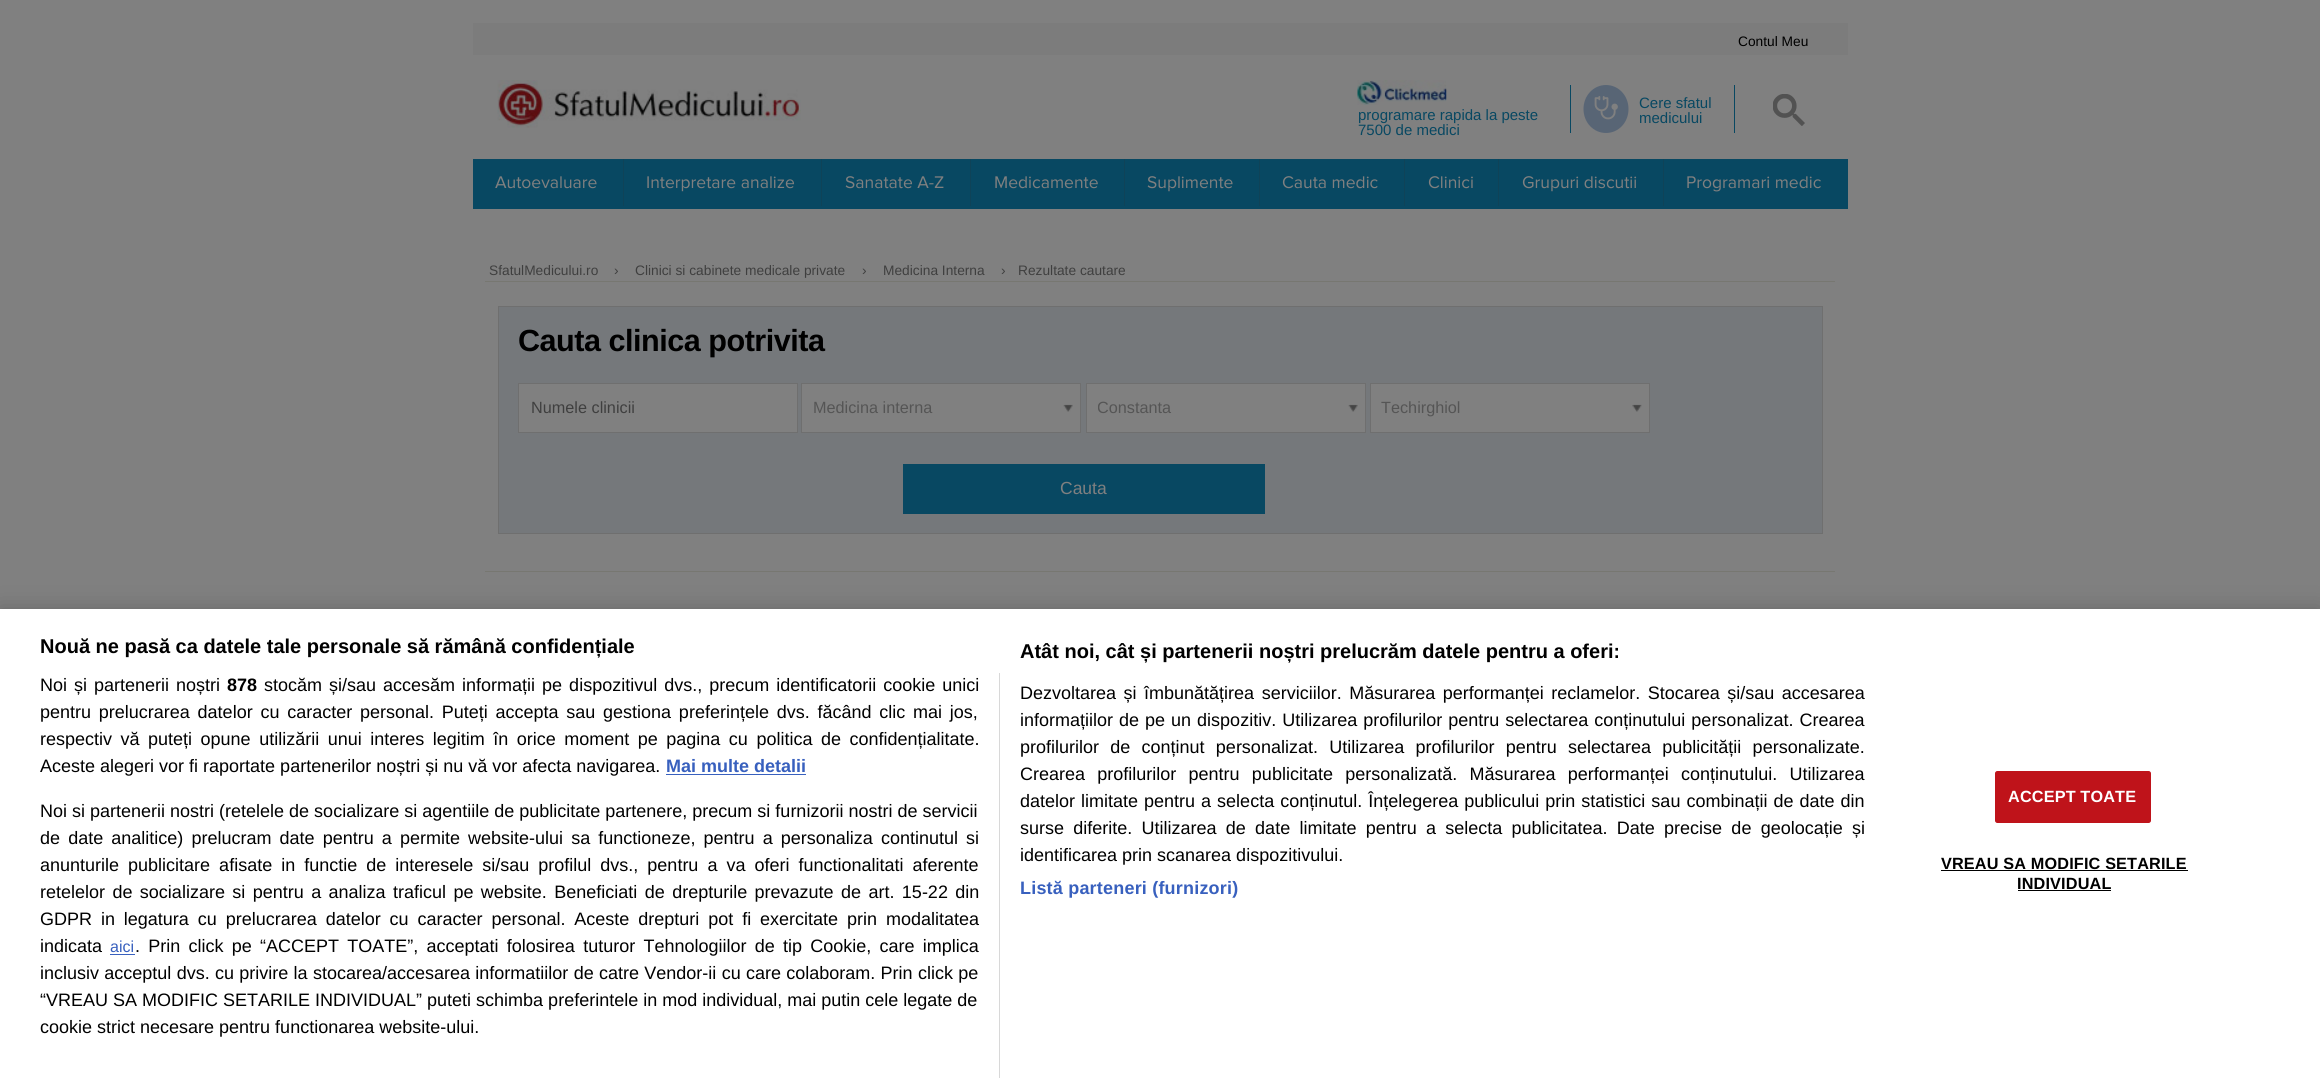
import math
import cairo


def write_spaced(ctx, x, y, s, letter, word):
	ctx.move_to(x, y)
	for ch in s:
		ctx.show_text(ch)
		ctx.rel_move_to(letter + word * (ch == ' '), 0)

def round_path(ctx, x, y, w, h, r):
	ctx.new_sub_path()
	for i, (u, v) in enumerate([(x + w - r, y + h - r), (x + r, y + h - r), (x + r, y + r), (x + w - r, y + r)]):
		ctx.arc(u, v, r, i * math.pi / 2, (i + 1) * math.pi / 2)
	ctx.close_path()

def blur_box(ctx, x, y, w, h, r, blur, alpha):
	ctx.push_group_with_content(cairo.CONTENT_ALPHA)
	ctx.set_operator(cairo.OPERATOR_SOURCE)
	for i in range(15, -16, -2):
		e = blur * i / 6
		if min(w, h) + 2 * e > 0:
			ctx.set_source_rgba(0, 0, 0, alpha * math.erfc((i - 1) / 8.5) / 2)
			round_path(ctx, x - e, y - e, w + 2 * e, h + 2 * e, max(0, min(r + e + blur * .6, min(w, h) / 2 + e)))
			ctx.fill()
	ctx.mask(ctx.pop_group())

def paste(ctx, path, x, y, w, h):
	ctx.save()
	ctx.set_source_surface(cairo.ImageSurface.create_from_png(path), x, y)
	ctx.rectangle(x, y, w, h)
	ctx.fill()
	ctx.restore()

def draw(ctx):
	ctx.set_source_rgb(0.502, 0.502, 0.502)
	ctx.paint()
	ctx.set_source_rgb(0.486, 0.486, 0.486)
	ctx.rectangle(473, 23, 1375, 32)
	ctx.fill()
	ctx.select_font_face('Liberation Sans')
	ctx.set_font_size(13.75)
	ctx.set_source_rgb(0, 0, 0)
	ctx.move_to(1738, 46)
	ctx.show_text('Contul Meu')
	paste(ctx, 'media/1.png', 497, 80, 304, 48)
	paste(ctx, 'media/2.png', 1357, 80, 90, 25)
	ctx.set_font_size(15)
	ctx.set_source_rgb(0.035, 0.282, 0.384)
	ctx.move_to(1358, 120)
	ctx.show_text('programare rapida la peste')
	ctx.move_to(1358, 135)
	ctx.show_text('7500 de medici')
	ctx.rectangle(1734, 85, 1, 48)
	ctx.fill()
	ctx.rectangle(1570, 85, 1, 48)
	ctx.fill()
	ctx.set_source_rgb(0.345, 0.396, 0.459)
	ctx.new_path()
	ctx.move_to(1606, 85)
	ctx.curve_to(1618.5, 85, 1628.5, 95.5, 1628.5, 109)
	ctx.curve_to(1628.5, 122.5, 1618.5, 133, 1606, 133)
	ctx.curve_to(1593.5, 133, 1583.5, 122.5, 1583.5, 109)
	ctx.curve_to(1583.5, 95.5, 1593.5, 85, 1606, 85)
	ctx.close_path()
	ctx.fill()
	paste(ctx, 'media/3.png', 1594, 96, 24, 24)
	ctx.set_source_rgb(0.035, 0.282, 0.384)
	ctx.move_to(1639, 108)
	ctx.show_text('Cere sfatul')
	ctx.move_to(1639, 123)
	ctx.show_text('medicului')
	paste(ctx, 'media/4.png', 1773, 94, 32, 32)
	ctx.rectangle(473, 159, 1375, 50)
	ctx.fill()
	ctx.set_source_rgb(0.059, 0.263, 0.345)
	ctx.rectangle(623, 159, 1, 47)
	ctx.fill()
	ctx.select_font_face('Proxima Nova')
	ctx.set_font_size(17.5)
	ctx.set_source_rgb(0.502, 0.502, 0.502)
	ctx.move_to(495, 188)
	ctx.show_text('Autoevaluare')
	ctx.set_source_rgb(0.059, 0.263, 0.345)
	ctx.rectangle(821, 159, 1, 47)
	ctx.fill()
	ctx.set_source_rgb(0.502, 0.502, 0.502)
	ctx.move_to(646, 188)
	ctx.show_text('Interpretare analize')
	ctx.set_source_rgb(0.059, 0.263, 0.345)
	ctx.rectangle(970, 159, 1, 47)
	ctx.fill()
	ctx.set_source_rgb(0.502, 0.502, 0.502)
	ctx.move_to(845, 188)
	ctx.show_text('Sanatate A-Z')
	ctx.set_source_rgb(0.059, 0.263, 0.345)
	ctx.rectangle(1124, 159, 1, 47)
	ctx.fill()
	ctx.set_source_rgb(0.502, 0.502, 0.502)
	ctx.move_to(994, 188)
	ctx.show_text('Medicamente')
	ctx.set_source_rgb(0.059, 0.263, 0.345)
	ctx.rectangle(1259, 159, 1, 47)
	ctx.fill()
	ctx.set_source_rgb(0.502, 0.502, 0.502)
	ctx.move_to(1147, 188)
	ctx.show_text('Suplimente')
	ctx.set_source_rgb(0.059, 0.263, 0.345)
	ctx.rectangle(1404, 159, 1, 47)
	ctx.fill()
	ctx.set_source_rgb(0.502, 0.502, 0.502)
	ctx.move_to(1282, 188)
	ctx.show_text('Cauta medic')
	ctx.set_source_rgb(0.059, 0.263, 0.345)
	ctx.rectangle(1498, 159, 1, 47)
	ctx.fill()
	ctx.set_source_rgb(0.502, 0.502, 0.502)
	ctx.move_to(1428, 188)
	ctx.show_text('Clinici')
	ctx.set_source_rgb(0.059, 0.263, 0.345)
	ctx.rectangle(1663, 159, 1, 47)
	ctx.fill()
	ctx.set_source_rgb(0.502, 0.502, 0.502)
	ctx.move_to(1522, 188)
	ctx.show_text('Grupuri discutii')
	ctx.move_to(1686, 188)
	ctx.show_text('Programari medic')
	ctx.set_source_rgb(0.467, 0.467, 0.443)
	ctx.rectangle(485, 281, 1350, 1)
	ctx.fill()
	ctx.select_font_face('Liberation Sans')
	ctx.set_font_size(13.75)
	ctx.set_source_rgb(0.247, 0.247, 0.247)
	for x, y, s in [
		(489, 275, 'SfatulMedicului.ro'),
		(614, 275, '›'),
		(635, 275, 'Clinici si cabinete medicale private'),
		(862, 275, '›'),
		(883, 275, 'Medicina Interna'),
		(1001, 275, '›'),
		(1018, 275, 'Rezultate cautare'),
	]:
		ctx.move_to(x, y)
		ctx.show_text(s)
	ctx.set_source_rgb(0.459, 0.471, 0.482)
	ctx.rectangle(498.5, 306.5, 1324, 227)
	ctx.fill_preserve()
	ctx.set_source_rgb(0.435, 0.435, 0.435)
	ctx.set_line_width(1)
	ctx.stroke()
	ctx.select_font_face('Liberation Sans', cairo.FONT_SLANT_NORMAL, cairo.FONT_WEIGHT_BOLD)
	ctx.set_font_size(30.6)
	ctx.set_source_rgb(0, 0, 0)
	write_spaced(ctx, 518, 351, 'Cauta clinica potrivita', -0.5, 0)
	ctx.set_source_rgb(0.502, 0.502, 0.502)
	ctx.rectangle(518.5, 383.5, 279, 49)
	ctx.fill_preserve()
	ctx.set_source_rgb(0.435, 0.435, 0.435)
	ctx.stroke()
	ctx.select_font_face('Liberation Sans')
	ctx.set_font_size(16.25)
	ctx.set_source_rgb(0.247, 0.247, 0.247)
	ctx.move_to(531, 413)
	ctx.show_text('Numele clinicii')
	ctx.set_source_rgb(0.502, 0.502, 0.502)
	ctx.rectangle(801.5, 383.5, 279, 49)
	ctx.fill_preserve()
	ctx.set_source_rgb(0.435, 0.435, 0.435)
	ctx.stroke()
	ctx.set_source_rgb(0.333, 0.333, 0.333)
	ctx.move_to(813, 413)
	ctx.show_text('Medicina interna')
	paste(ctx, 'media/5.png', 1063, 404, 10, 8)
	ctx.set_source_rgb(0.502, 0.502, 0.502)
	ctx.rectangle(1086.5, 383.5, 279, 49)
	ctx.fill_preserve()
	ctx.set_source_rgb(0.435, 0.435, 0.435)
	ctx.stroke()
	ctx.save()
	ctx.rectangle(1098, 394, 235, 30)
	ctx.clip()
	ctx.set_source_rgb(0.333, 0.333, 0.333)
	ctx.move_to(1097, 413)
	ctx.show_text('Constanta')
	ctx.restore()
	paste(ctx, 'media/5.png', 1348, 404, 10, 8)
	ctx.set_source_rgb(0.502, 0.502, 0.502)
	ctx.rectangle(1370.5, 383.5, 279, 49)
	ctx.fill_preserve()
	ctx.set_source_rgb(0.435, 0.435, 0.435)
	ctx.stroke()
	ctx.set_source_rgb(0.333, 0.333, 0.333)
	ctx.move_to(1381, 413)
	ctx.show_text('Techirghiol')
	paste(ctx, 'media/6.png', 1632, 404, 10, 8)
	ctx.set_source_rgb(0.035, 0.282, 0.384)
	ctx.rectangle(903, 464, 362, 50)
	ctx.fill()
	ctx.set_font_size(17.5)
	ctx.set_source_rgb(0.502, 0.502, 0.502)
	ctx.move_to(1060, 494)
	ctx.show_text('Cauta')
	ctx.set_source_rgb(0.467, 0.467, 0.443)
	ctx.rectangle(485, 571, 1350, 1)
	ctx.fill()
	ctx.set_source_rgb(0, 0, 0)
	blur_box(ctx, 0, 609, 2320, 481, 0, 11, 0.2)
	ctx.set_source_rgb(1, 1, 1)
	ctx.rectangle(0, 609, 2320, 481)
	ctx.fill()
	ctx.select_font_face('Liberation Sans', cairo.FONT_SLANT_NORMAL, cairo.FONT_WEIGHT_BOLD)
	ctx.set_font_size(20)
	ctx.set_source_rgb(0, 0, 0)
	ctx.move_to(40, 653)
	ctx.show_text('Nouă ne pasă ca datele tale personale să rămână confidențiale')
	ctx.move_to(1020, 658)
	ctx.show_text('Atât noi, cât și partenerii noștri prelucrăm datele pentru a oferi:')
	ctx.select_font_face('Liberation Sans')
	ctx.set_font_size(18)
	write_spaced(ctx, 1020, 699, 'Dezvoltarea și îmbunătățirea serviciilor. Măsurarea performanței reclamelor. Stocarea și/sau accesarea', 0, 2.5)
	write_spaced(ctx, 1020, 726, 'informațiilor de pe un dispozitiv. Utilizarea profilurilor pentru selectarea conținutului personalizat. Crearea', 0, 1)
	write_spaced(ctx, 1020, 753, 'profilurilor de conținut personalizat. Utilizarea profilurilor pentru selectarea publicității personalizate.', 0, 6.25)
	write_spaced(ctx, 1020, 780, 'Crearea profilurilor pentru publicitate personalizată. Măsurarea performanței conținutului. Utilizarea', 0, 7.25)
	write_spaced(ctx, 1020, 807, 'datelor limitate pentru a selecta conținutul. Înțelegerea publicului prin statistici sau combinații de date din', 0, 1)
	write_spaced(ctx, 1020, 834, 'surse diferite. Utilizarea de date limitate pentru a selecta publicitatea. Date precise de geolocație și', 0, 4.25)
	ctx.move_to(1020, 861)
	ctx.show_text('identificarea prin scanarea dispozitivului.')
	ctx.select_font_face('Liberation Sans', cairo.FONT_SLANT_NORMAL, cairo.FONT_WEIGHT_BOLD)
	ctx.set_source_rgb(0.22, 0.376, 0.745)
	write_spaced(ctx, 1020, 894, 'Listă parteneri (furnizori)', 0.2, 0)
	ctx.set_source_rgb(0.847, 0.847, 0.847)
	ctx.rectangle(999, 673, 1, 405)
	ctx.fill()
	ctx.select_font_face('Liberation Sans')
	ctx.set_source_rgb(0, 0, 0)
	write_spaced(ctx, 40, 691, 'Noi și partenerii noștri', 0, 2)
	ctx.select_font_face('Liberation Sans', cairo.FONT_SLANT_NORMAL, cairo.FONT_WEIGHT_BOLD)
	ctx.move_to(227, 691)
	ctx.show_text('878')
	ctx.select_font_face('Liberation Sans')
	write_spaced(ctx, 264, 691, 'stocăm și/sau accesăm informații pe dispozitivul dvs., precum identificatorii cookie unici', 0, 2)
	write_spaced(ctx, 40, 718, 'pentru prelucrarea datelor cu caracter personal. Puteți accepta sau gestiona preferințele dvs. făcând clic mai jos,', 0, 2.75)
	write_spaced(ctx, 40, 745, 'respectiv vă puteți opune utilizării unui interes legitim în orice moment pe pagina cu politica de confidențialitate.', 0, 3.5)
	ctx.move_to(40, 772)
	ctx.show_text('Aceste alegeri vor fi raportate partenerilor noștri și nu vă vor afecta navigarea.')
	ctx.select_font_face('Liberation Sans', cairo.FONT_SLANT_NORMAL, cairo.FONT_WEIGHT_BOLD)
	ctx.set_source_rgb(0.22, 0.376, 0.745)
	ctx.move_to(666, 772)
	ctx.show_text('Mai multe detalii')
	ctx.rectangle(666, 774, 140, 1)
	ctx.fill()
	ctx.select_font_face('Liberation Sans')
	ctx.set_source_rgb(0, 0, 0)
	ctx.move_to(40, 817)
	ctx.show_text('Noi si partenerii nostri (retelele de socializare si agentiile de publicitate partenere, precum si furnizorii nostri de servicii')
	write_spaced(ctx, 40, 844, 'de date analitice) prelucram date pentru a permite website-ului sa functioneze, pentru a personaliza continutul si', 0, 3.1)
	write_spaced(ctx, 40, 871, 'anunturile publicitare afisate in functie de interesele si/sau profilul dvs., pentru a va oferi functionalitati aferente', 0, 4)
	write_spaced(ctx, 40, 898, 'retelelor de socializare si pentru a analiza traficul pe website. Beneficiati de drepturile prevazute de art. 15-22 din', 0, 2.4)
	write_spaced(ctx, 40, 925, 'GDPR in legatura cu prelucrarea datelor cu caracter personal. Aceste drepturi pot fi exercitate prin modalitatea', 0, 3.9)
	ctx.move_to(40, 952)
	ctx.show_text('indicata')
	ctx.set_font_size(16)
	ctx.set_source_rgb(0.22, 0.376, 0.745)
	ctx.move_to(110, 952)
	ctx.show_text('aici')
	ctx.rectangle(110, 954, 25, 1)
	ctx.fill()
	ctx.set_font_size(18)
	ctx.set_source_rgb(0, 0, 0)
	write_spaced(ctx, 135, 952, '. Prin click pe “ACCEPT TOATE”, acceptati folosirea tuturor Tehnologiilor de tip Cookie, care implica', 0, 3.25)
	write_spaced(ctx, 40, 979, 'inclusiv acceptul dvs. cu privire la stocarea/accesarea informatiilor de catre Vendor-ii cu care colaboram. Prin click pe', 0, 0.3)
	ctx.move_to(40, 1006)
	ctx.show_text('“VREAU SA MODIFIC SETARILE INDIVIDUAL” puteti schimba preferintele in mod individual, mai putin cele legate de')
	ctx.move_to(40, 1033)
	ctx.show_text('cookie strict necesare pentru functionarea website-ului.')
	ctx.set_source_rgb(0.749, 0.078, 0.102)
	round_path(ctx, 1995.5, 771.5, 155, 51, 2)
	ctx.fill_preserve()
	ctx.stroke()
	ctx.select_font_face('Liberation Sans', cairo.FONT_SLANT_NORMAL, cairo.FONT_WEIGHT_BOLD)
	ctx.set_font_size(16.25)
	ctx.set_source_rgb(1, 1, 1)
	write_spaced(ctx, 2008, 802, 'ACCEPT TOATE', 0.15, 0)
	ctx.set_source_rgb(0, 0, 0)
	write_spaced(ctx, 1941, 869, 'VREAU SA MODIFIC SETARILE', 0.15, 0)
	ctx.rectangle(1941, 870, 247, 1)
	ctx.fill()
	write_spaced(ctx, 2017, 889, 'INDIVIDUAL', 0.15, 0)
	ctx.rectangle(2018, 890, 93, 1)
	ctx.fill()


surface = cairo.ImageSurface(cairo.FORMAT_RGB24, 2320, 1090)
ctx = cairo.Context(surface)
options = cairo.FontOptions()
options.set_hint_metrics(cairo.HINT_METRICS_OFF)
options.set_hint_style(cairo.HINT_STYLE_NONE)
ctx.set_font_options(options)
ctx.set_miter_limit(4)
draw(ctx)
surface.write_to_png('image.png')
